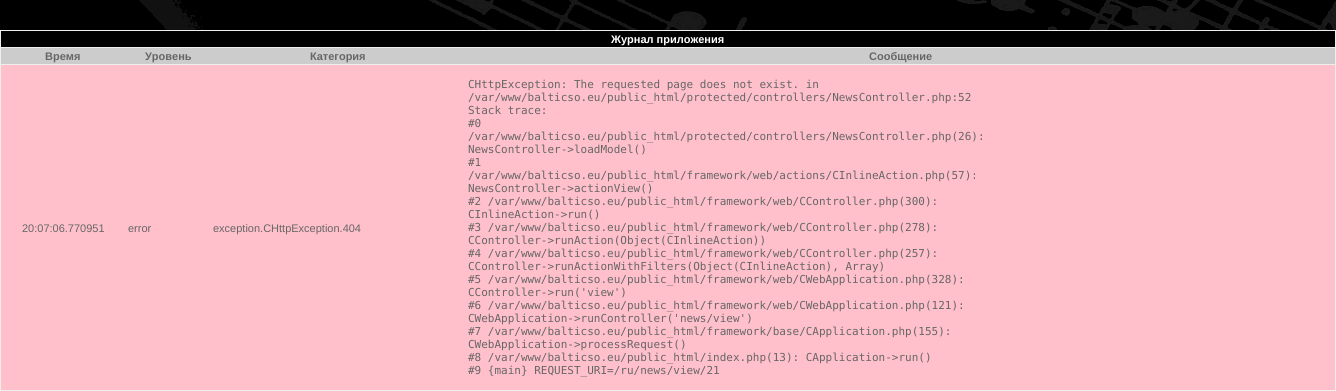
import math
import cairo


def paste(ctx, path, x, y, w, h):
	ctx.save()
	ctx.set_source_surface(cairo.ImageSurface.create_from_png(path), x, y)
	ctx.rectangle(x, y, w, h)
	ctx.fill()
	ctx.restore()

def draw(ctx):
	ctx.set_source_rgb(1, 1, 1)
	ctx.paint()
	paste(ctx, 'media/1.png', 0, 0, 1336, 30)
	ctx.set_source_rgb(0.933, 0.933, 0.933)
	ctx.rectangle(0, 30, 1336, 361)
	ctx.fill()
	ctx.set_source_rgb(0, 0, 0)
	ctx.rectangle(1, 31, 1334, 16)
	ctx.fill()
	ctx.select_font_face('Liberation Sans', cairo.FONT_SLANT_NORMAL, cairo.FONT_WEIGHT_BOLD)
	ctx.set_font_size(11)
	ctx.set_source_rgb(1, 1, 1)
	ctx.move_to(611, 43)
	ctx.show_text('Журнал приложения')
	ctx.set_source_rgb(0.8, 0.8, 0.8)
	ctx.rectangle(1, 48, 1334, 16)
	ctx.fill()
	ctx.set_source_rgb(0.4, 0.4, 0.4)
	for x, y, s in [
		(45, 60, 'Время'),
		(145, 60, 'Уровень'),
		(310, 60, 'Категория'),
		(869, 60, 'Сообщение'),
	]:
		ctx.move_to(x, y)
		ctx.show_text(s)
	ctx.set_source_rgb(1, 0.753, 0.796)
	ctx.rectangle(1, 65, 1334, 325)
	ctx.fill()
	ctx.select_font_face('Liberation Sans')
	ctx.set_source_rgb(0.4, 0.4, 0.4)
	for x, y, s in [
		(22, 232, '20:07:06.770951'),
		(128, 232, 'error'),
		(213, 232, 'exception.CHttpException.404'),
	]:
		ctx.move_to(x, y)
		ctx.show_text(s)
	ctx.select_font_face('DejaVu Sans Mono')
	for x, y, s in [
		(468, 88, 'CHttpException: The requested page does not exist. in'),
		(468, 101, '/var/www/balticso.eu/public_html/protected/controllers/NewsController.php:52'),
		(468, 114, 'Stack trace:'),
		(468, 127, '#0'),
		(468, 140, '/var/www/balticso.eu/public_html/protected/controllers/NewsController.php(26):'),
		(468, 153, 'NewsController->loadModel()'),
		(468, 166, '#1'),
		(468, 179, '/var/www/balticso.eu/public_html/framework/web/actions/CInlineAction.php(57):'),
		(468, 192, 'NewsController->actionView()'),
		(468, 205, '#2 /var/www/balticso.eu/public_html/framework/web/CController.php(300):'),
		(468, 218, 'CInlineAction->run()'),
		(468, 231, '#3 /var/www/balticso.eu/public_html/framework/web/CController.php(278):'),
		(468, 244, 'CController->runAction(Object(CInlineAction))'),
		(468, 257, '#4 /var/www/balticso.eu/public_html/framework/web/CController.php(257):'),
		(468, 270, 'CController->runActionWithFilters(Object(CInlineAction), Array)'),
		(468, 283, '#5 /var/www/balticso.eu/public_html/framework/web/CWebApplication.php(328):'),
		(468, 296, 'CController->run(\'view\')'),
		(468, 309, '#6 /var/www/balticso.eu/public_html/framework/web/CWebApplication.php(121):'),
		(468, 322, 'CWebApplication->runController(\'news/view\')'),
		(468, 335, '#7 /var/www/balticso.eu/public_html/framework/base/CApplication.php(155):'),
		(468, 348, 'CWebApplication->processRequest()'),
		(468, 361, '#8 /var/www/balticso.eu/public_html/index.php(13): CApplication->run()'),
		(468, 374, '#9 {main} REQUEST_URI=/ru/news/view/21'),
	]:
		ctx.move_to(x, y)
		ctx.show_text(s)


surface = cairo.ImageSurface(cairo.FORMAT_RGB24, 1336, 391)
ctx = cairo.Context(surface)
options = cairo.FontOptions()
options.set_hint_metrics(cairo.HINT_METRICS_OFF)
options.set_hint_style(cairo.HINT_STYLE_NONE)
ctx.set_font_options(options)
ctx.set_miter_limit(4)
draw(ctx)
surface.write_to_png('image.png')
